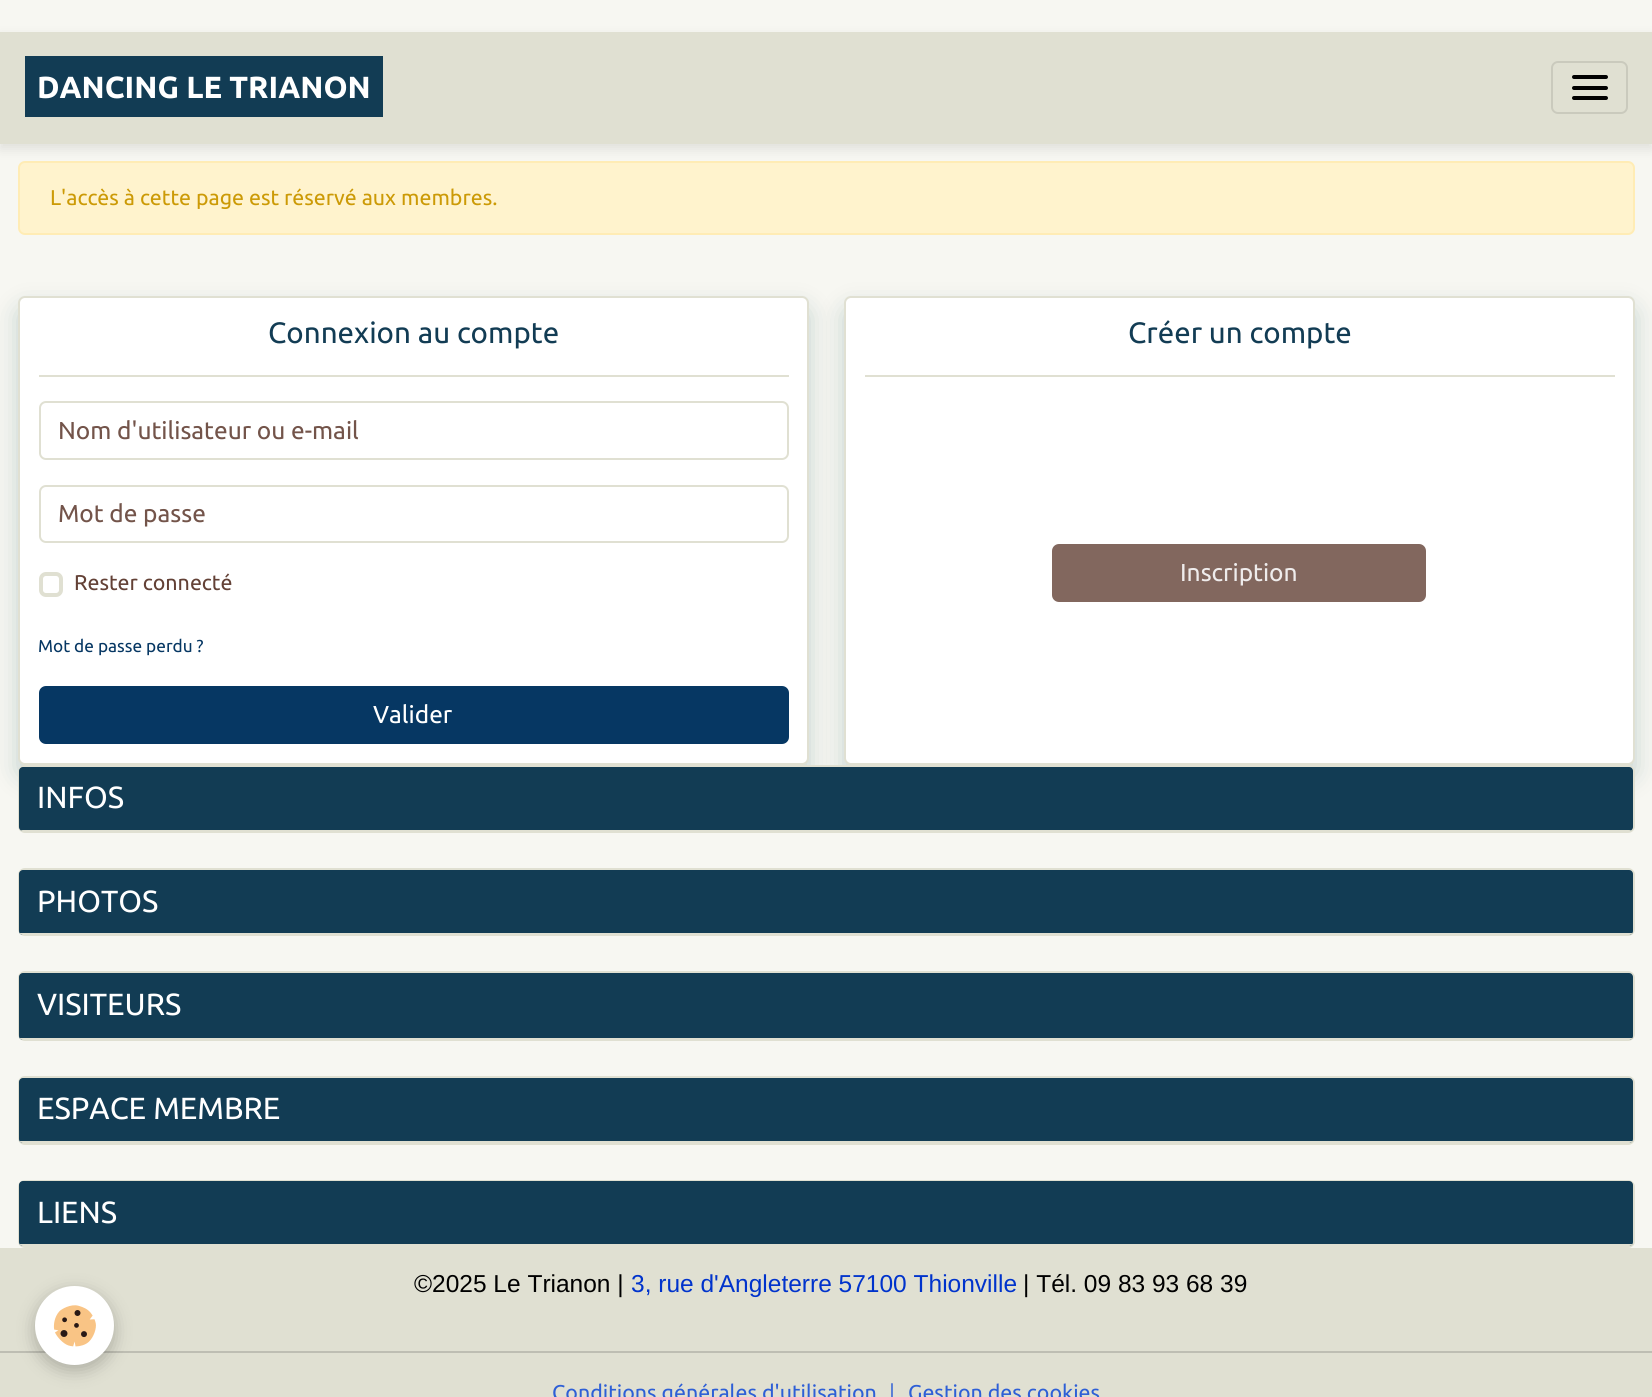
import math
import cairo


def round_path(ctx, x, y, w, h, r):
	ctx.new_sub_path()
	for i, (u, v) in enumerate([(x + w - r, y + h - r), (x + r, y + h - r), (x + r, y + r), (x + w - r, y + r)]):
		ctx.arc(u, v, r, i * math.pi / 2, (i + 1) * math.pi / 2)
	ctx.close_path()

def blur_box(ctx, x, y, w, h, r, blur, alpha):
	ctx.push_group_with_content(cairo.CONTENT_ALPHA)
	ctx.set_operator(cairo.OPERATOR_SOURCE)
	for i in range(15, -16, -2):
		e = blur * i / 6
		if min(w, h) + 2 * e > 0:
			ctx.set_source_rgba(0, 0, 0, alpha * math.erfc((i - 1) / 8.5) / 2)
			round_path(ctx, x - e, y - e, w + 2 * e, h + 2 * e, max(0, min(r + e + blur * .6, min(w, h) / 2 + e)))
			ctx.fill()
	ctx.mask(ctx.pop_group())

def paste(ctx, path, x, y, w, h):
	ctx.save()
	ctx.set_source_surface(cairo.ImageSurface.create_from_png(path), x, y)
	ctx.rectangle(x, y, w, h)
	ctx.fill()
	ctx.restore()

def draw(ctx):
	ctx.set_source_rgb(0.965, 0.965, 0.949)
	ctx.paint()
	ctx.set_source_rgb(1, 0.953, 0.804)
	round_path(ctx, 19, 162, 1615, 72, 6)
	ctx.fill_preserve()
	ctx.set_source_rgb(1, 0.925, 0.71)
	ctx.stroke()
	ctx.set_source_rgb(0, 0, 0)
	blur_box(ctx, 0, 37, 1652, 112, 0, 6, 0.1)
	ctx.set_source_rgb(0.878, 0.878, 0.824)
	ctx.rectangle(0, 32, 1652, 112)
	ctx.fill()
	ctx.set_source_rgb(0.071, 0.235, 0.329)
	ctx.rectangle(25, 56, 358, 61)
	ctx.fill()
	ctx.select_font_face('Ubuntu', cairo.FONT_SLANT_NORMAL, cairo.FONT_WEIGHT_BOLD)
	ctx.set_font_size(30.6)
	ctx.set_source_rgb(1, 1, 1)
	ctx.move_to(37, 98)
	ctx.show_text('DANCING LE TRIANON')
	round_path(ctx, 1552, 62, 75, 51, 6)
	ctx.set_source_rgb(0.792, 0.792, 0.741)
	ctx.stroke()
	ctx.set_source_rgb(0, 0, 0)
	round_path(ctx, 1572, 75, 36, 4, 2)
	ctx.fill()
	round_path(ctx, 1572, 86, 36, 4, 2)
	ctx.fill()
	round_path(ctx, 1572, 96, 36, 4, 2)
	ctx.fill()
	ctx.select_font_face('Ubuntu')
	ctx.set_font_size(21.4)
	ctx.set_source_rgb(0.8, 0.604, 0.024)
	ctx.move_to(50, 205)
	ctx.show_text('L\'accès à cette page est réservé aux membres.')
	ctx.set_source_rgb(0.298, 0.482, 0.494)
	blur_box(ctx, 18, 308, 791, 469, 7, 12, 0.3)
	ctx.set_source_rgb(1, 1, 1)
	round_path(ctx, 19, 297, 789, 467, 6)
	ctx.fill_preserve()
	ctx.set_source_rgb(0.878, 0.878, 0.824)
	ctx.stroke()
	ctx.rectangle(39, 375, 750, 2)
	ctx.fill()
	ctx.set_font_size(29.5)
	ctx.set_source_rgb(0.071, 0.235, 0.329)
	ctx.move_to(268, 343)
	ctx.show_text('Connexion au compte')
	round_path(ctx, 40, 402, 748, 57, 6)
	ctx.set_source_rgb(0.878, 0.878, 0.824)
	ctx.stroke()
	ctx.set_font_size(24.5)
	ctx.set_source_rgb(0.451, 0.329, 0.29)
	ctx.move_to(58, 439)
	ctx.show_text('Nom d\'utilisateur ou e-mail')
	round_path(ctx, 40, 486, 748, 56, 6)
	ctx.set_source_rgb(0.878, 0.878, 0.824)
	ctx.stroke()
	ctx.set_source_rgb(0.451, 0.329, 0.29)
	ctx.move_to(58, 522)
	ctx.show_text('Mot de passe')
	round_path(ctx, 41, 574, 20, 21, 5)
	ctx.set_source_rgb(0.878, 0.878, 0.824)
	ctx.set_line_width(4)
	ctx.stroke()
	ctx.set_font_size(21.4)
	ctx.set_source_rgb(0.388, 0.255, 0.212)
	ctx.move_to(74, 590)
	ctx.show_text('Rester connecté')
	ctx.set_font_size(17.25)
	ctx.set_source_rgb(0.027, 0.216, 0.388)
	ctx.move_to(38, 652)
	ctx.show_text('Mot de passe perdu ?')
	round_path(ctx, 40, 687, 748, 56, 6)
	ctx.fill_preserve()
	ctx.set_line_width(2)
	ctx.stroke()
	ctx.set_font_size(24.5)
	ctx.set_source_rgb(1, 1, 1)
	ctx.move_to(373, 723)
	ctx.show_text('Valider')
	ctx.set_source_rgb(0.298, 0.482, 0.494)
	blur_box(ctx, 844, 308, 791, 469, 7, 12, 0.3)
	ctx.set_source_rgb(1, 1, 1)
	round_path(ctx, 845, 297, 789, 467, 6)
	ctx.fill_preserve()
	ctx.set_source_rgb(0.878, 0.878, 0.824)
	ctx.stroke()
	ctx.rectangle(865, 375, 750, 2)
	ctx.fill()
	ctx.set_font_size(29.5)
	ctx.set_source_rgb(0.071, 0.235, 0.329)
	ctx.move_to(1128, 343)
	ctx.show_text('Créer un compte')
	ctx.set_source_rgb(0.51, 0.404, 0.369)
	round_path(ctx, 1053, 545, 372, 56, 6)
	ctx.fill_preserve()
	ctx.stroke()
	ctx.set_font_size(24.5)
	ctx.set_source_rgb(0.937, 0.925, 0.922)
	ctx.move_to(1180, 581)
	ctx.show_text('Inscription')
	round_path(ctx, 19, 766, 1615, 66, 6)
	ctx.set_source_rgb(0.878, 0.878, 0.824)
	ctx.stroke()
	ctx.set_source_rgb(0.071, 0.235, 0.329)
	round_path(ctx, 19, 767, 1614, 64, 4)
	ctx.fill()
	ctx.save()
	round_path(ctx, 19, 767, 1614, 64, 4)
	ctx.clip()
	ctx.set_source_rgb(0.878, 0.878, 0.824)
	ctx.rectangle(19, 830, 1614, 1)
	ctx.fill()
	ctx.restore()
	ctx.set_font_size(30.6)
	ctx.set_source_rgb(1, 1, 1)
	ctx.move_to(37, 808)
	ctx.show_text('INFOS')
	round_path(ctx, 19, 869, 1615, 66, 6)
	ctx.set_source_rgb(0.878, 0.878, 0.824)
	ctx.stroke()
	ctx.set_source_rgb(0.071, 0.235, 0.329)
	round_path(ctx, 19, 870, 1614, 65, 4)
	ctx.fill()
	ctx.save()
	round_path(ctx, 19, 870, 1614, 65, 4)
	ctx.clip()
	ctx.set_source_rgb(0.878, 0.878, 0.824)
	ctx.rectangle(19, 933, 1614, 2)
	ctx.fill()
	ctx.restore()
	ctx.set_source_rgb(1, 1, 1)
	ctx.move_to(37, 912)
	ctx.show_text('PHOTOS')
	round_path(ctx, 19, 972, 1615, 68, 6)
	ctx.set_source_rgb(0.878, 0.878, 0.824)
	ctx.stroke()
	ctx.set_source_rgb(0.071, 0.235, 0.329)
	round_path(ctx, 19, 973, 1614, 67, 4)
	ctx.fill()
	ctx.save()
	round_path(ctx, 19, 973, 1614, 67, 4)
	ctx.clip()
	ctx.set_source_rgb(0.878, 0.878, 0.824)
	ctx.rectangle(19, 1038, 1614, 2)
	ctx.fill()
	ctx.restore()
	ctx.set_source_rgb(1, 1, 1)
	ctx.move_to(37, 1015)
	ctx.show_text('VISITEURS')
	round_path(ctx, 19, 1077, 1615, 67, 6)
	ctx.set_source_rgb(0.878, 0.878, 0.824)
	ctx.stroke()
	ctx.set_source_rgb(0.071, 0.235, 0.329)
	round_path(ctx, 19, 1078, 1614, 65, 4)
	ctx.fill()
	ctx.save()
	round_path(ctx, 19, 1078, 1614, 65, 4)
	ctx.clip()
	ctx.set_source_rgb(0.878, 0.878, 0.824)
	ctx.rectangle(19, 1141, 1614, 2)
	ctx.fill()
	ctx.restore()
	ctx.set_source_rgb(1, 1, 1)
	ctx.move_to(37, 1119)
	ctx.show_text('ESPACE MEMBRE')
	round_path(ctx, 19, 1181, 1615, 66, 6)
	ctx.set_source_rgb(0.878, 0.878, 0.824)
	ctx.stroke()
	ctx.set_source_rgb(0.071, 0.235, 0.329)
	round_path(ctx, 19, 1181, 1614, 65, 4)
	ctx.fill()
	ctx.save()
	round_path(ctx, 19, 1181, 1614, 65, 4)
	ctx.clip()
	ctx.set_source_rgb(0.878, 0.878, 0.824)
	ctx.rectangle(19, 1244, 1614, 2)
	ctx.fill()
	ctx.restore()
	ctx.set_source_rgb(1, 1, 1)
	ctx.move_to(37, 1223)
	ctx.show_text('LIENS')
	ctx.set_source_rgb(0.878, 0.878, 0.824)
	ctx.rectangle(0, 1248, 1652, 149)
	ctx.fill()
	ctx.set_source_rgb(0.745, 0.745, 0.702)
	ctx.rectangle(0, 1351, 1652, 2)
	ctx.fill()
	ctx.set_source_rgb(0, 0, 0)
	blur_box(ctx, 35, 1292, 79, 78, 39, 9, 0.24)
	ctx.set_source_rgb(1, 1, 1)
	ctx.arc(74.5, 1325.5, 39.5, 0, 2 * math.pi)
	ctx.fill()
	paste(ctx, 'media/1.png', 53, 1305, 43, 42)
	ctx.select_font_face('Liberation Sans')
	ctx.set_font_size(24.5)
	ctx.set_source_rgb(0, 0, 0)
	ctx.move_to(414, 1292)
	ctx.show_text('©2025 Le Trianon |')
	ctx.set_source_rgb(0, 0.2, 0.8)
	ctx.move_to(631, 1292)
	ctx.show_text('3, rue d\'Angleterre 57100 Thionville')
	ctx.set_source_rgb(0, 0, 0)
	ctx.move_to(1023, 1292)
	ctx.show_text('| Tél. 09 83 93 68 39')
	ctx.select_font_face('Ubuntu')
	ctx.set_font_size(21.4)
	ctx.set_source_rgb(0.18, 0.373, 0.839)
	ctx.move_to(552, 1400)
	ctx.show_text('Conditions générales d\'utilisation')
	ctx.set_source_rgb(0.322, 0.475, 0.835)
	ctx.move_to(889, 1400)
	ctx.show_text('|')
	ctx.set_source_rgb(0.18, 0.373, 0.839)
	ctx.move_to(908, 1400)
	ctx.show_text('Gestion des cookies')


surface = cairo.ImageSurface(cairo.FORMAT_RGB24, 1652, 1397)
ctx = cairo.Context(surface)
options = cairo.FontOptions()
options.set_hint_metrics(cairo.HINT_METRICS_OFF)
options.set_hint_style(cairo.HINT_STYLE_NONE)
ctx.set_font_options(options)
ctx.set_miter_limit(4)
draw(ctx)
surface.write_to_png('image.png')
